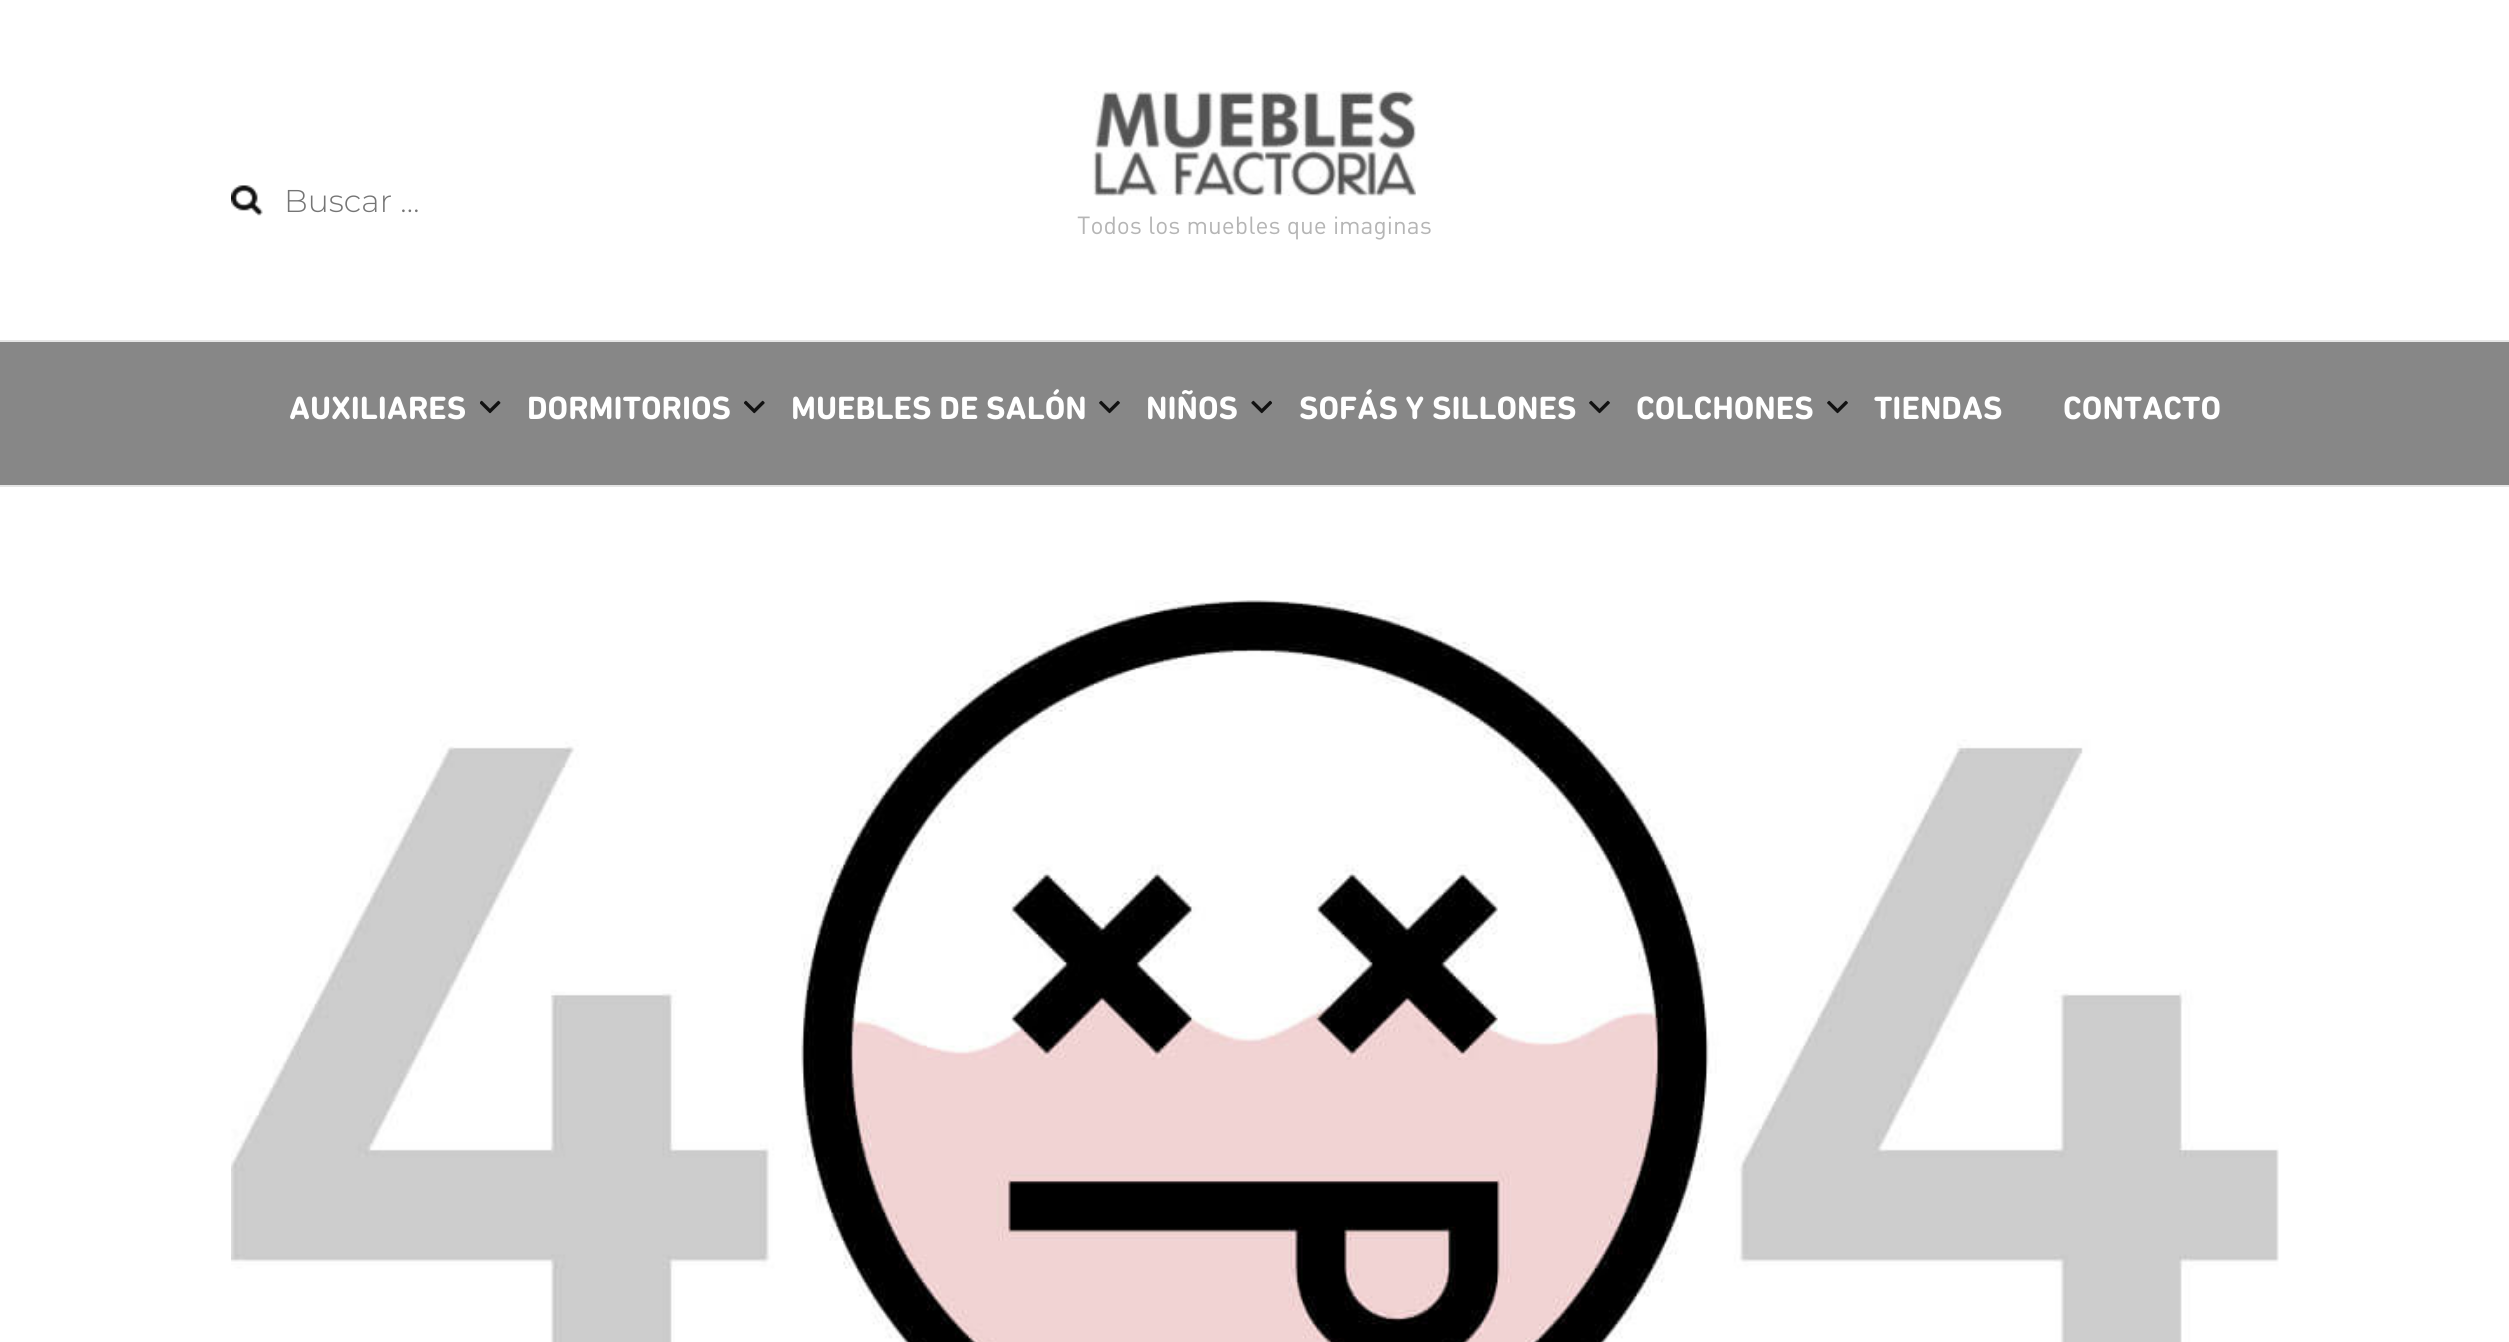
import math
import cairo


def paste(ctx, path, x, y, w, h):
	ctx.save()
	ctx.set_source_surface(cairo.ImageSurface.create_from_png(path), x, y)
	ctx.rectangle(x, y, w, h)
	ctx.fill()
	ctx.restore()

def draw(ctx):
	ctx.set_source_rgb(1, 1, 1)
	ctx.paint()
	paste(ctx, 'media/1.png', 231, 185, 32, 31)
	ctx.select_font_face('Montserrat Light')
	ctx.set_font_size(31.5)
	ctx.set_source_rgb(0.459, 0.459, 0.459)
	ctx.move_to(284, 212)
	ctx.show_text('Buscar …')
	paste(ctx, 'media/2.png', 1093, 91, 323, 105)
	ctx.select_font_face('DIN')
	ctx.set_font_size(24.5)
	ctx.set_source_rgb(0.71, 0.71, 0.71)
	ctx.move_to(1077, 234)
	ctx.show_text('Todos los muebles que imaginas')
	ctx.set_source_rgb(0.529, 0.529, 0.529)
	ctx.rectangle(0, 342, 2509, 143)
	ctx.fill()
	ctx.set_source_rgb(0.898, 0.898, 0.898)
	ctx.rectangle(0, 340, 2509, 2)
	ctx.rectangle(0, 485, 2509, 2)
	ctx.fill()
	ctx.select_font_face('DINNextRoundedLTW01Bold', cairo.FONT_SLANT_NORMAL, cairo.FONT_WEIGHT_BOLD)
	ctx.set_font_size(32.75)
	ctx.set_source_rgb(1, 1, 1)
	ctx.move_to(289, 419)
	ctx.show_text('AUXILIARES')
	paste(ctx, 'media/3.png', 480, 400, 21, 14)
	ctx.move_to(527, 419)
	ctx.show_text('DORMITORIOS')
	paste(ctx, 'media/4.png', 744, 400, 21, 14)
	ctx.move_to(791, 419)
	ctx.show_text('MUEBLES DE SALÓN')
	paste(ctx, 'media/5.png', 1099, 400, 21, 14)
	ctx.move_to(1146, 419)
	ctx.show_text('NIÑOS')
	paste(ctx, 'media/6.png', 1251, 400, 21, 14)
	ctx.move_to(1299, 419)
	ctx.show_text('SOFÁS Y SILLONES')
	paste(ctx, 'media/5.png', 1589, 400, 21, 14)
	ctx.move_to(1636, 419)
	ctx.show_text('COLCHONES')
	paste(ctx, 'media/5.png', 1827, 400, 21, 14)
	ctx.move_to(1874, 419)
	ctx.show_text('TIENDAS')
	ctx.move_to(2063, 419)
	ctx.show_text('CONTACTO')
	paste(ctx, 'media/7.png', 231, 600, 2048, 742)


surface = cairo.ImageSurface(cairo.FORMAT_RGB24, 2509, 1342)
ctx = cairo.Context(surface)
options = cairo.FontOptions()
options.set_hint_metrics(cairo.HINT_METRICS_OFF)
options.set_hint_style(cairo.HINT_STYLE_NONE)
ctx.set_font_options(options)
ctx.set_miter_limit(4)
draw(ctx)
surface.write_to_png('image.png')
